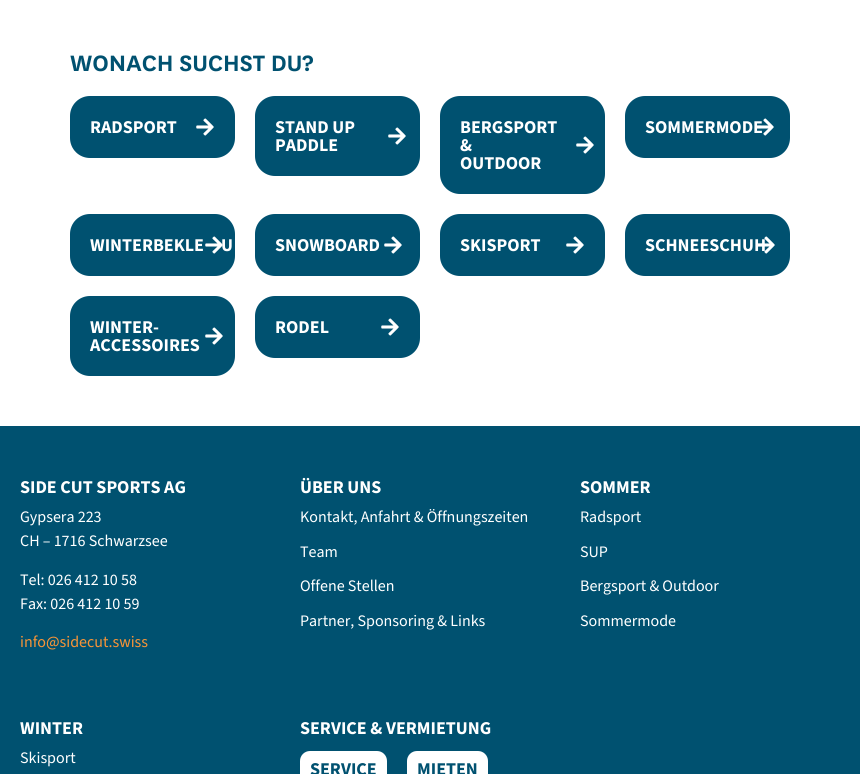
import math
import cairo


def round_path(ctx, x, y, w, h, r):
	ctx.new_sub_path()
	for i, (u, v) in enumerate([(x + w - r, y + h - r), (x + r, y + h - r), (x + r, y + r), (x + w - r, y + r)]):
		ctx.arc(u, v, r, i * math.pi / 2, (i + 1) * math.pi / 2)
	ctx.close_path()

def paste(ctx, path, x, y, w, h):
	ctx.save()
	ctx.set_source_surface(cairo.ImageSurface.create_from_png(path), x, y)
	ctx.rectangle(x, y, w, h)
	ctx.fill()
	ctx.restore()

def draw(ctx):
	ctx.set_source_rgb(1, 1, 1)
	ctx.paint()
	paste(ctx, 'media/1.png', 70, 55, 243, 17)
	ctx.set_source_rgb(0, 0.318, 0.439)
	round_path(ctx, 70, 96, 165, 62, 20)
	ctx.fill()
	ctx.select_font_face('Source Sans 3', cairo.FONT_SLANT_NORMAL, cairo.FONT_WEIGHT_BOLD)
	ctx.set_font_size(18)
	ctx.set_source_rgb(1, 1, 1)
	ctx.move_to(90, 133)
	ctx.show_text('RADSPORT')
	paste(ctx, 'media/2.png', 196, 118, 18, 18)
	ctx.set_source_rgb(0, 0.318, 0.439)
	round_path(ctx, 255, 96, 165, 80, 20)
	ctx.fill()
	ctx.set_source_rgb(1, 1, 1)
	ctx.move_to(275, 133)
	ctx.show_text('STAND UP')
	ctx.move_to(275, 151)
	ctx.show_text('PADDLE')
	paste(ctx, 'media/2.png', 388, 127, 18, 18)
	ctx.set_source_rgb(0, 0.318, 0.439)
	round_path(ctx, 440, 96, 165, 98, 20)
	ctx.fill()
	ctx.set_source_rgb(1, 1, 1)
	for x, y, s in [
		(460, 133, 'BERGSPORT'),
		(460, 151, '&'),
		(460, 169, 'OUTDOOR'),
	]:
		ctx.move_to(x, y)
		ctx.show_text(s)
	paste(ctx, 'media/2.png', 576, 136, 18, 18)
	ctx.set_source_rgb(0, 0.318, 0.439)
	round_path(ctx, 625, 96, 165, 62, 20)
	ctx.fill()
	ctx.set_source_rgb(1, 1, 1)
	ctx.move_to(645, 133)
	ctx.show_text('SOMMERMODE')
	paste(ctx, 'media/3.png', 757, 118, 17, 18)
	ctx.set_source_rgb(0, 0.318, 0.439)
	round_path(ctx, 70, 214, 165, 62, 20)
	ctx.fill()
	ctx.set_source_rgb(1, 1, 1)
	ctx.move_to(221, 251)
	ctx.show_text('U')
	paste(ctx, 'media/4.png', 205, 236, 18, 18)
	ctx.move_to(90, 251)
	ctx.show_text('WINTERBEKLE')
	ctx.set_source_rgb(0, 0.318, 0.439)
	round_path(ctx, 255, 214, 165, 62, 20)
	ctx.fill()
	ctx.set_source_rgb(1, 1, 1)
	ctx.move_to(275, 251)
	ctx.show_text('SNOWBOARD')
	paste(ctx, 'media/2.png', 384, 236, 18, 18)
	ctx.set_source_rgb(0, 0.318, 0.439)
	round_path(ctx, 440, 214, 165, 62, 20)
	ctx.fill()
	ctx.set_source_rgb(1, 1, 1)
	ctx.move_to(460, 251)
	ctx.show_text('SKISPORT')
	paste(ctx, 'media/2.png', 566, 236, 18, 18)
	ctx.set_source_rgb(0, 0.318, 0.439)
	round_path(ctx, 625, 214, 165, 62, 20)
	ctx.fill()
	ctx.set_source_rgb(1, 1, 1)
	ctx.move_to(645, 251)
	ctx.show_text('SCHNEESCHUH')
	paste(ctx, 'media/5.png', 758, 236, 17, 18)
	ctx.set_source_rgb(0, 0.318, 0.439)
	round_path(ctx, 70, 296, 165, 80, 20)
	ctx.fill()
	ctx.set_source_rgb(1, 1, 1)
	ctx.move_to(90, 333)
	ctx.show_text('WINTER-')
	ctx.move_to(90, 351)
	ctx.show_text('ACCESSOIRES')
	paste(ctx, 'media/2.png', 205, 327, 18, 18)
	ctx.set_source_rgb(0, 0.318, 0.439)
	round_path(ctx, 255, 296, 165, 62, 20)
	ctx.fill()
	ctx.set_source_rgb(1, 1, 1)
	ctx.move_to(275, 333)
	ctx.show_text('RODEL')
	paste(ctx, 'media/2.png', 381, 318, 18, 18)
	ctx.set_source_rgb(0, 0.318, 0.439)
	ctx.rectangle(0, 426, 860, 348)
	ctx.fill()
	ctx.set_source_rgb(1, 1, 1)
	ctx.move_to(20, 493)
	ctx.show_text('SIDE CUT SPORTS AG')
	ctx.select_font_face('Source Sans 3')
	ctx.set_font_size(16)
	for x, y, s in [
		(20, 522, 'Gypsera 223'),
		(20, 546, 'CH – 1716 Schwarzsee'),
		(20, 585, 'Tel: 026 412 10 58'),
		(20, 609, 'Fax: 026 412 10 59'),
	]:
		ctx.move_to(x, y)
		ctx.show_text(s)
	ctx.set_source_rgb(0.969, 0.58, 0.216)
	ctx.move_to(20, 647)
	ctx.show_text('info@sidecut.swiss')
	ctx.select_font_face('Source Sans 3', cairo.FONT_SLANT_NORMAL, cairo.FONT_WEIGHT_BOLD)
	ctx.set_font_size(18)
	ctx.set_source_rgb(1, 1, 1)
	ctx.move_to(300, 493)
	ctx.show_text('ÜBER UNS')
	ctx.select_font_face('Source Sans 3')
	ctx.set_font_size(16)
	for x, y, s in [
		(300, 522, 'Kontakt, Anfahrt & Öffnungszeiten'),
		(300, 557, 'Team'),
		(300, 591, 'Offene Stellen'),
		(300, 626, 'Partner, Sponsoring & Links'),
	]:
		ctx.move_to(x, y)
		ctx.show_text(s)
	ctx.select_font_face('Source Sans 3', cairo.FONT_SLANT_NORMAL, cairo.FONT_WEIGHT_BOLD)
	ctx.set_font_size(18)
	ctx.move_to(580, 493)
	ctx.show_text('SOMMER')
	ctx.select_font_face('Source Sans 3')
	ctx.set_font_size(16)
	for x, y, s in [
		(580, 522, 'Radsport'),
		(580, 557, 'SUP'),
		(580, 591, 'Bergsport & Outdoor'),
		(580, 626, 'Sommermode'),
	]:
		ctx.move_to(x, y)
		ctx.show_text(s)
	ctx.select_font_face('Source Sans 3', cairo.FONT_SLANT_NORMAL, cairo.FONT_WEIGHT_BOLD)
	ctx.set_font_size(18)
	ctx.move_to(20, 734)
	ctx.show_text('WINTER')
	ctx.select_font_face('Source Sans 3')
	ctx.set_font_size(16)
	ctx.move_to(20, 763)
	ctx.show_text('Skisport')
	ctx.select_font_face('Source Sans 3', cairo.FONT_SLANT_NORMAL, cairo.FONT_WEIGHT_BOLD)
	ctx.set_font_size(18)
	ctx.move_to(300, 734)
	ctx.show_text('SERVICE & VERMIETUNG')
	round_path(ctx, 300, 751, 87, 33, 10)
	ctx.fill()
	ctx.set_source_rgb(0, 0.318, 0.439)
	ctx.move_to(310, 775)
	ctx.show_text('SERVICE')
	ctx.set_source_rgb(1, 1, 1)
	round_path(ctx, 407, 751, 81, 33, 10)
	ctx.fill()
	ctx.set_source_rgb(0, 0.318, 0.439)
	ctx.move_to(417, 775)
	ctx.show_text('MIETEN')


surface = cairo.ImageSurface(cairo.FORMAT_RGB24, 860, 774)
ctx = cairo.Context(surface)
options = cairo.FontOptions()
options.set_hint_metrics(cairo.HINT_METRICS_OFF)
options.set_hint_style(cairo.HINT_STYLE_NONE)
ctx.set_font_options(options)
ctx.set_miter_limit(4)
draw(ctx)
surface.write_to_png('image.png')
